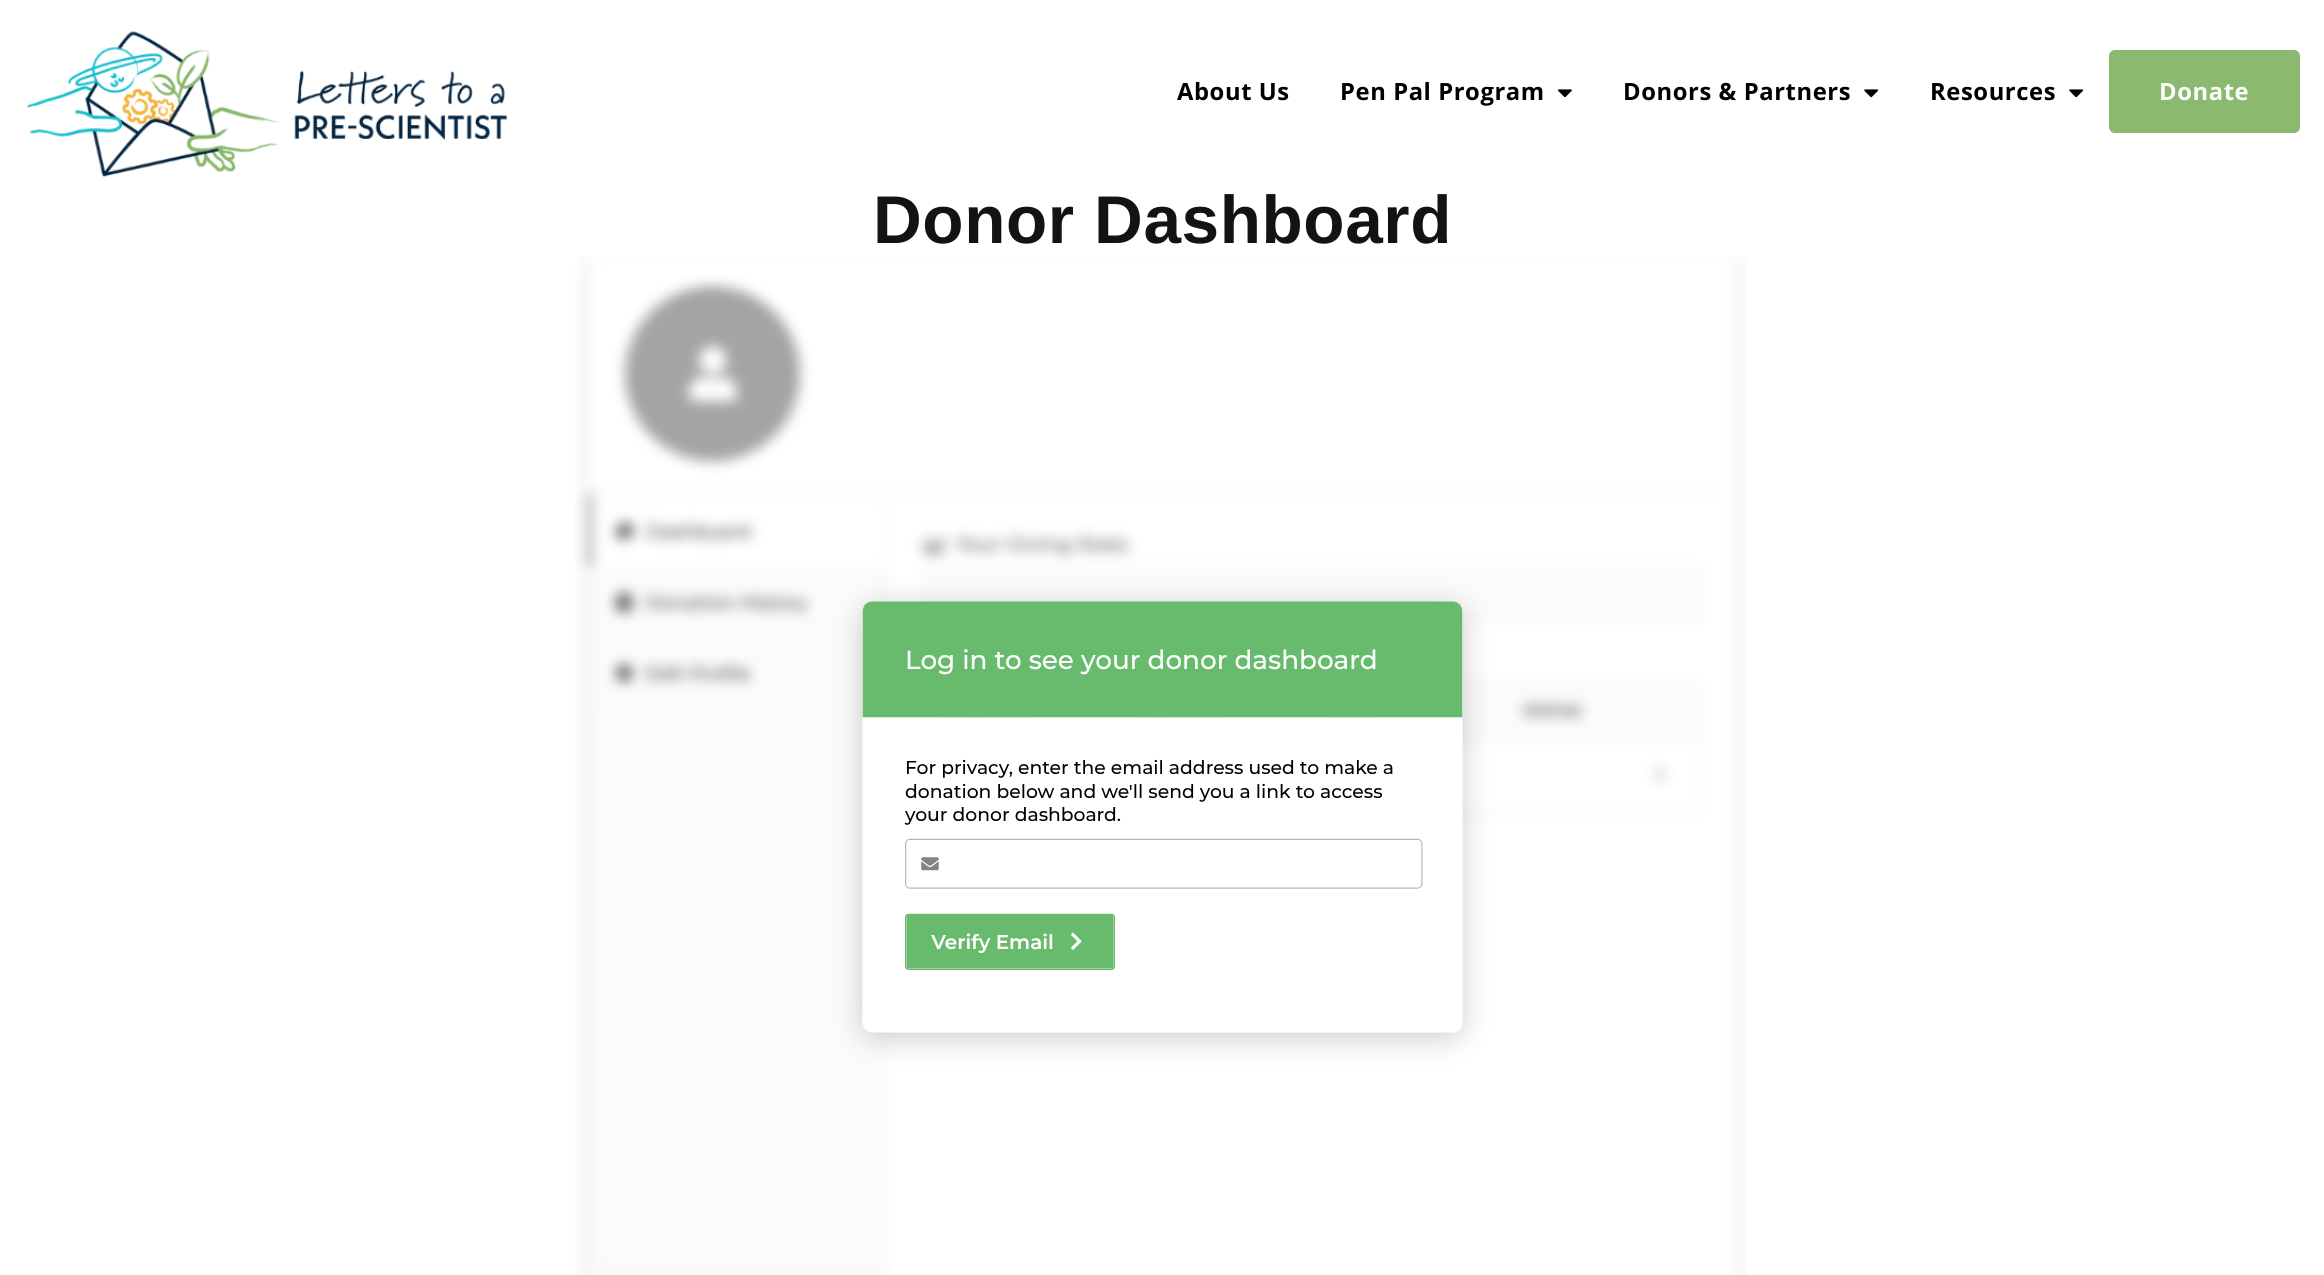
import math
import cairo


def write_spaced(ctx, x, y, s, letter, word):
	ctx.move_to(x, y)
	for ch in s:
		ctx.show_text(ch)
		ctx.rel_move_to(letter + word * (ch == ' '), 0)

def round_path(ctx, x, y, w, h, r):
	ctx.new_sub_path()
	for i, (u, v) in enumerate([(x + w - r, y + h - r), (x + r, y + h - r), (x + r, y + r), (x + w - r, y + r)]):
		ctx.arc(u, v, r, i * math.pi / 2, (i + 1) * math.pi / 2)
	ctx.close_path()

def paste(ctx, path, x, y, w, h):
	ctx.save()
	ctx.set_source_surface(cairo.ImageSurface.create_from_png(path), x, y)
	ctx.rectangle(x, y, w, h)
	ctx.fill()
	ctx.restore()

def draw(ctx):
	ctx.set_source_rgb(1, 1, 1)
	ctx.paint()
	paste(ctx, 'media/1.png', 27, 31, 480, 147)
	ctx.select_font_face('Open Sans', cairo.FONT_SLANT_NORMAL, cairo.FONT_WEIGHT_BOLD)
	ctx.set_font_size(23.75)
	ctx.set_source_rgb(0, 0, 0)
	write_spaced(ctx, 1177, 100, 'About Us', 0.6, 0)
	write_spaced(ctx, 1340, 100, 'Pen Pal Program', 0.6, 0)
	paste(ctx, 'media/2.png', 1558, 89, 14, 9)
	write_spaced(ctx, 1623, 100, 'Donors & Partners', 0.6, 0)
	paste(ctx, 'media/3.png', 1864, 89, 14, 9)
	write_spaced(ctx, 1930, 100, 'Resources', 0.6, 0)
	paste(ctx, 'media/3.png', 2069, 89, 14, 9)
	ctx.set_source_rgb(0.545, 0.725, 0.435)
	round_path(ctx, 2109, 50, 191, 83, 6)
	ctx.fill()
	ctx.set_source_rgb(1, 1, 1)
	write_spaced(ctx, 2159, 100, 'Donate', 0.6, 0)
	ctx.select_font_face('Liberation Sans', cairo.FONT_SLANT_NORMAL, cairo.FONT_WEIGHT_BOLD)
	ctx.set_font_size(67.5)
	ctx.set_source_rgb(0.078, 0.078, 0.078)
	write_spaced(ctx, 873, 243, 'Donor Dashboard', 0.6, 0)
	paste(ctx, 'media/4.png', 575, 256, 1172, 1019)


surface = cairo.ImageSurface(cairo.FORMAT_RGB24, 2324, 1275)
ctx = cairo.Context(surface)
options = cairo.FontOptions()
options.set_hint_metrics(cairo.HINT_METRICS_OFF)
options.set_hint_style(cairo.HINT_STYLE_NONE)
ctx.set_font_options(options)
ctx.set_miter_limit(4)
draw(ctx)
surface.write_to_png('image.png')
